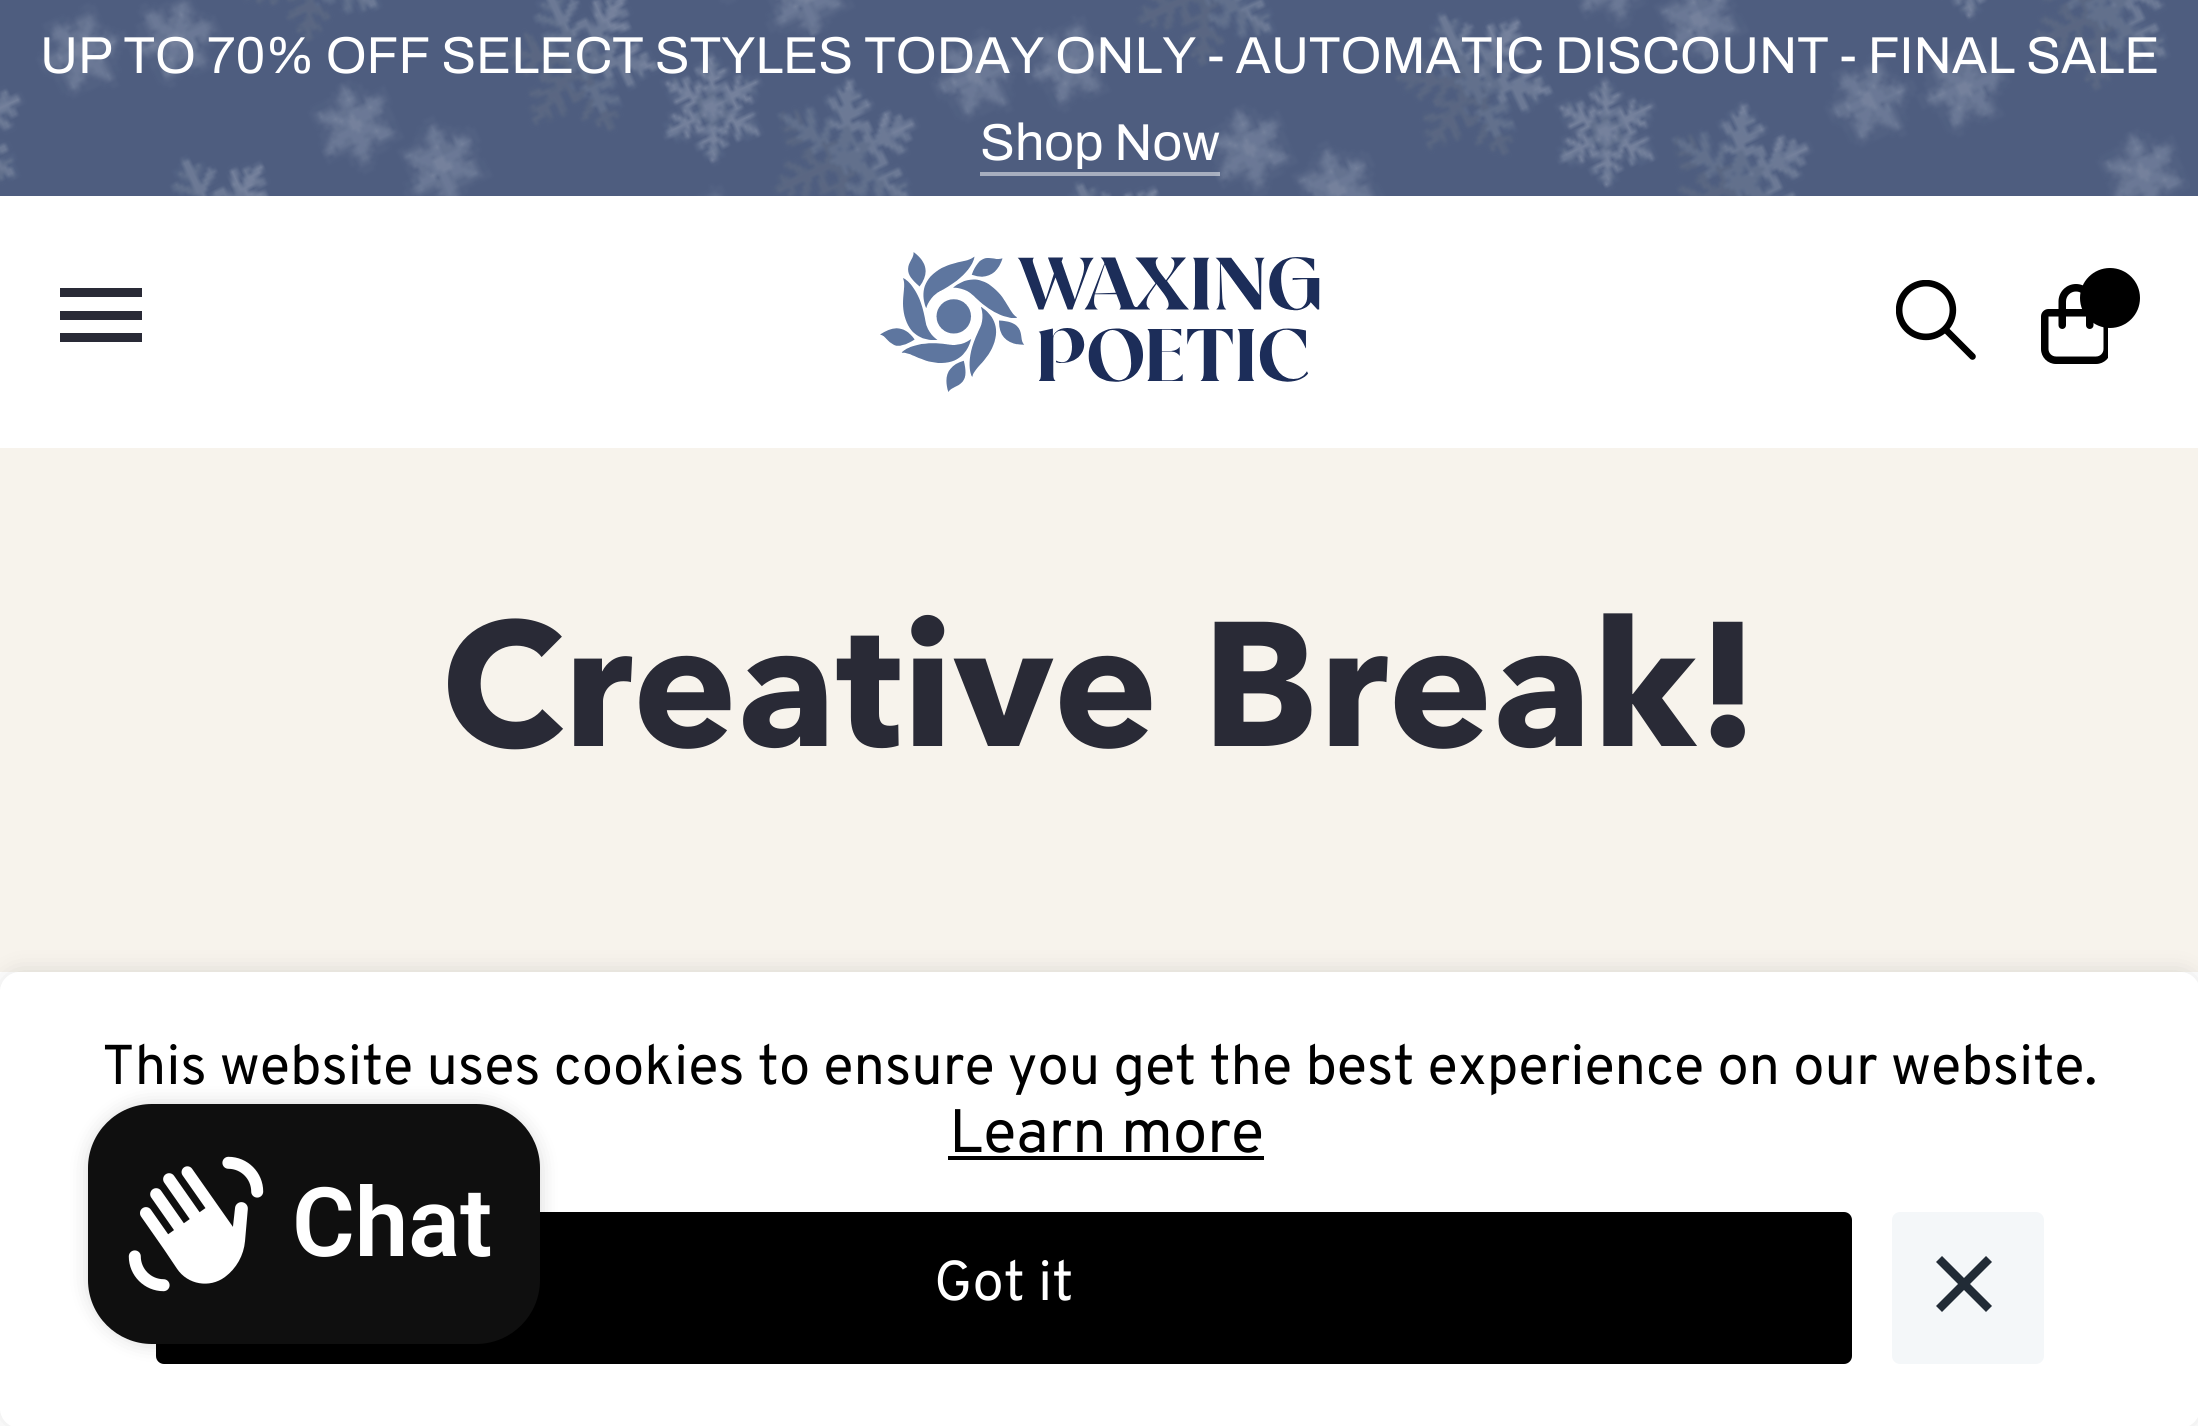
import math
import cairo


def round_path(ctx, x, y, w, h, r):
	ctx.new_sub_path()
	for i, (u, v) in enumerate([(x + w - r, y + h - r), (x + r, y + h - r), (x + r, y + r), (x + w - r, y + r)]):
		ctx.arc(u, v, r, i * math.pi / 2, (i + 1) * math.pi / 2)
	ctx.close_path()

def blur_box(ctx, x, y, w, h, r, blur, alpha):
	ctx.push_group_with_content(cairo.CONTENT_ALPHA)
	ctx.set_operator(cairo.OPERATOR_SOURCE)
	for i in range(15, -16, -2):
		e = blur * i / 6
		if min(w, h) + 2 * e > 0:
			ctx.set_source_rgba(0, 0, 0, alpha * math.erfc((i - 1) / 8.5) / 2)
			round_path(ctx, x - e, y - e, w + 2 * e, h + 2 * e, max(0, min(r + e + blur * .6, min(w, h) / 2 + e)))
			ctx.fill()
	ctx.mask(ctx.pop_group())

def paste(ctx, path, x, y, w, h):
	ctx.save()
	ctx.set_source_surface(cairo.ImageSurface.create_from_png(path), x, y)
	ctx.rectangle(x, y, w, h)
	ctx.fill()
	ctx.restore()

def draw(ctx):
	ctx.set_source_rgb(1, 1, 1)
	ctx.paint()
	ctx.set_source_rgb(0.306, 0.365, 0.498)
	ctx.rectangle(0, 0, 2198, 196)
	ctx.fill()
	paste(ctx, 'media/1.png', 0, 0, 2190, 196)
	ctx.select_font_face('Archivo SemiBold')
	ctx.set_font_size(52)
	ctx.set_source_rgb(1, 1, 1)
	ctx.move_to(40, 73)
	ctx.show_text('UP TO 70% OFF SELECT STYLES TODAY ONLY - AUTOMATIC DISCOUNT - FINAL SALE')
	ctx.move_to(980, 160)
	ctx.show_text('Shop Now')
	ctx.set_source_rgba(1, 1, 1, 0.5)
	ctx.rectangle(980, 172, 240, 4)
	ctx.fill()
	ctx.set_source_rgb(0.161, 0.165, 0.212)
	ctx.new_path()
	ctx.move_to(60, 342)
	ctx.line_to(60, 333)
	ctx.line_to(142, 333)
	ctx.line_to(142, 342)
	ctx.close_path()
	ctx.move_to(60, 320)
	ctx.line_to(60, 311)
	ctx.line_to(142, 311)
	ctx.line_to(142, 320)
	ctx.close_path()
	ctx.move_to(60, 288)
	ctx.line_to(142, 288)
	ctx.line_to(142, 297)
	ctx.line_to(60, 297)
	ctx.close_path()
	ctx.fill()
	paste(ctx, 'media/2.png', 880, 252, 440, 140)
	ctx.save()
	ctx.rectangle(1896, 280, 80, 80)
	ctx.clip()
	ctx.new_path()
	ctx.move_to(1907, 291)
	ctx.curve_to(1917.5, 280.5, 1934.5, 280.5, 1945, 291)
	ctx.curve_to(1955.5, 301.5, 1955.5, 318.5, 1945, 329)
	ctx.curve_to(1934.5, 339.5, 1917.5, 339.5, 1907, 329)
	ctx.curve_to(1896.5, 318.5, 1896.5, 301.5, 1907, 291)
	ctx.close_path()
	ctx.set_source_rgb(0, 0, 0)
	ctx.set_line_width(6.6)
	ctx.set_line_cap(cairo.LINE_CAP_ROUND)
	ctx.stroke()
	ctx.restore()
	ctx.new_path()
	ctx.move_to(1946, 330)
	ctx.line_to(1972.5, 356.5)
	ctx.set_source_rgb(0, 0, 0)
	ctx.set_line_width(6.6)
	ctx.set_line_cap(cairo.LINE_CAP_ROUND)
	ctx.stroke()
	paste(ctx, 'media/3.png', 2041, 284, 67, 80)
	ctx.arc(2110, 298, 30, 0, 2 * math.pi)
	ctx.fill()
	ctx.set_source_rgb(0.965, 0.953, 0.925)
	ctx.rectangle(0, 448, 2198, 524)
	ctx.fill()
	ctx.select_font_face('Avenir Next', cairo.FONT_SLANT_NORMAL, cairo.FONT_WEIGHT_BOLD)
	ctx.set_font_size(175.5)
	ctx.set_source_rgb(0.161, 0.165, 0.212)
	ctx.move_to(441, 746)
	ctx.show_text('Creative Break!')
	ctx.save()
	ctx.set_fill_rule(cairo.FILL_RULE_EVEN_ODD)
	ctx.new_path()
	ctx.move_to(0, 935)
	ctx.line_to(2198, 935)
	ctx.line_to(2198, 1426)
	ctx.line_to(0, 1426)
	ctx.close_path()
	ctx.move_to(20, 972)
	ctx.line_to(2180, 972)
	ctx.curve_to(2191, 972, 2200, 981, 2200, 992)
	ctx.line_to(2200, 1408)
	ctx.curve_to(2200, 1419, 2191, 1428, 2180, 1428)
	ctx.line_to(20, 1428)
	ctx.curve_to(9, 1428, 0, 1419, 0, 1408)
	ctx.line_to(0, 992)
	ctx.curve_to(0, 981, 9, 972, 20, 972)
	ctx.close_path()
	ctx.clip()
	ctx.set_source_rgb(0, 0, 0)
	blur_box(ctx, 0, 972, 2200, 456, 20, 12, 0.12)
	ctx.restore()
	ctx.select_font_face('Overpass')
	ctx.set_font_size(56)
	ctx.set_source_rgb(0, 0, 0)
	ctx.move_to(102, 1084)
	ctx.show_text('This website uses cookies to ensure you get the best experience on our website.')
	ctx.set_font_size(61.25)
	ctx.move_to(949, 1152)
	ctx.show_text('Learn more')
	ctx.rectangle(948, 1156, 316, 4)
	ctx.fill()
	round_path(ctx, 156, 1212, 1696, 152, 8)
	ctx.fill()
	ctx.set_font_size(56)
	ctx.set_source_rgb(1, 1, 1)
	ctx.move_to(934, 1300)
	ctx.show_text('Got it')
	ctx.set_source_rgb(0.957, 0.965, 0.973)
	round_path(ctx, 1892, 1212, 152, 152, 8)
	ctx.fill()
	ctx.set_source_rgb(0.129, 0.169, 0.212)
	ctx.new_path()
	ctx.move_to(1992, 1262)
	ctx.line_to(1986, 1256)
	ctx.line_to(1964, 1278)
	ctx.line_to(1942, 1256)
	ctx.line_to(1936, 1262)
	ctx.line_to(1958, 1284)
	ctx.line_to(1936, 1306)
	ctx.line_to(1942, 1312)
	ctx.line_to(1964, 1290)
	ctx.line_to(1986, 1312)
	ctx.line_to(1992, 1306)
	ctx.line_to(1970, 1284)
	ctx.close_path()
	ctx.fill()
	ctx.set_source_rgb(0, 0, 0)
	blur_box(ctx, 88, 1104, 452, 240, 64, 10, 0.15)
	ctx.set_source_rgb(0.059, 0.059, 0.059)
	round_path(ctx, 88, 1104, 452, 240, 64)
	ctx.fill()
	paste(ctx, 'media/4.png', 128, 1156, 136, 136)
	ctx.select_font_face('Roboto SemiBold')
	ctx.set_font_size(96)
	ctx.set_source_rgb(1, 1, 1)
	ctx.move_to(292, 1256)
	ctx.show_text('Chat')


surface = cairo.ImageSurface(cairo.FORMAT_RGB24, 2198, 1426)
ctx = cairo.Context(surface)
options = cairo.FontOptions()
options.set_hint_metrics(cairo.HINT_METRICS_OFF)
options.set_hint_style(cairo.HINT_STYLE_NONE)
ctx.set_font_options(options)
ctx.set_miter_limit(4)
draw(ctx)
surface.write_to_png('image.png')
